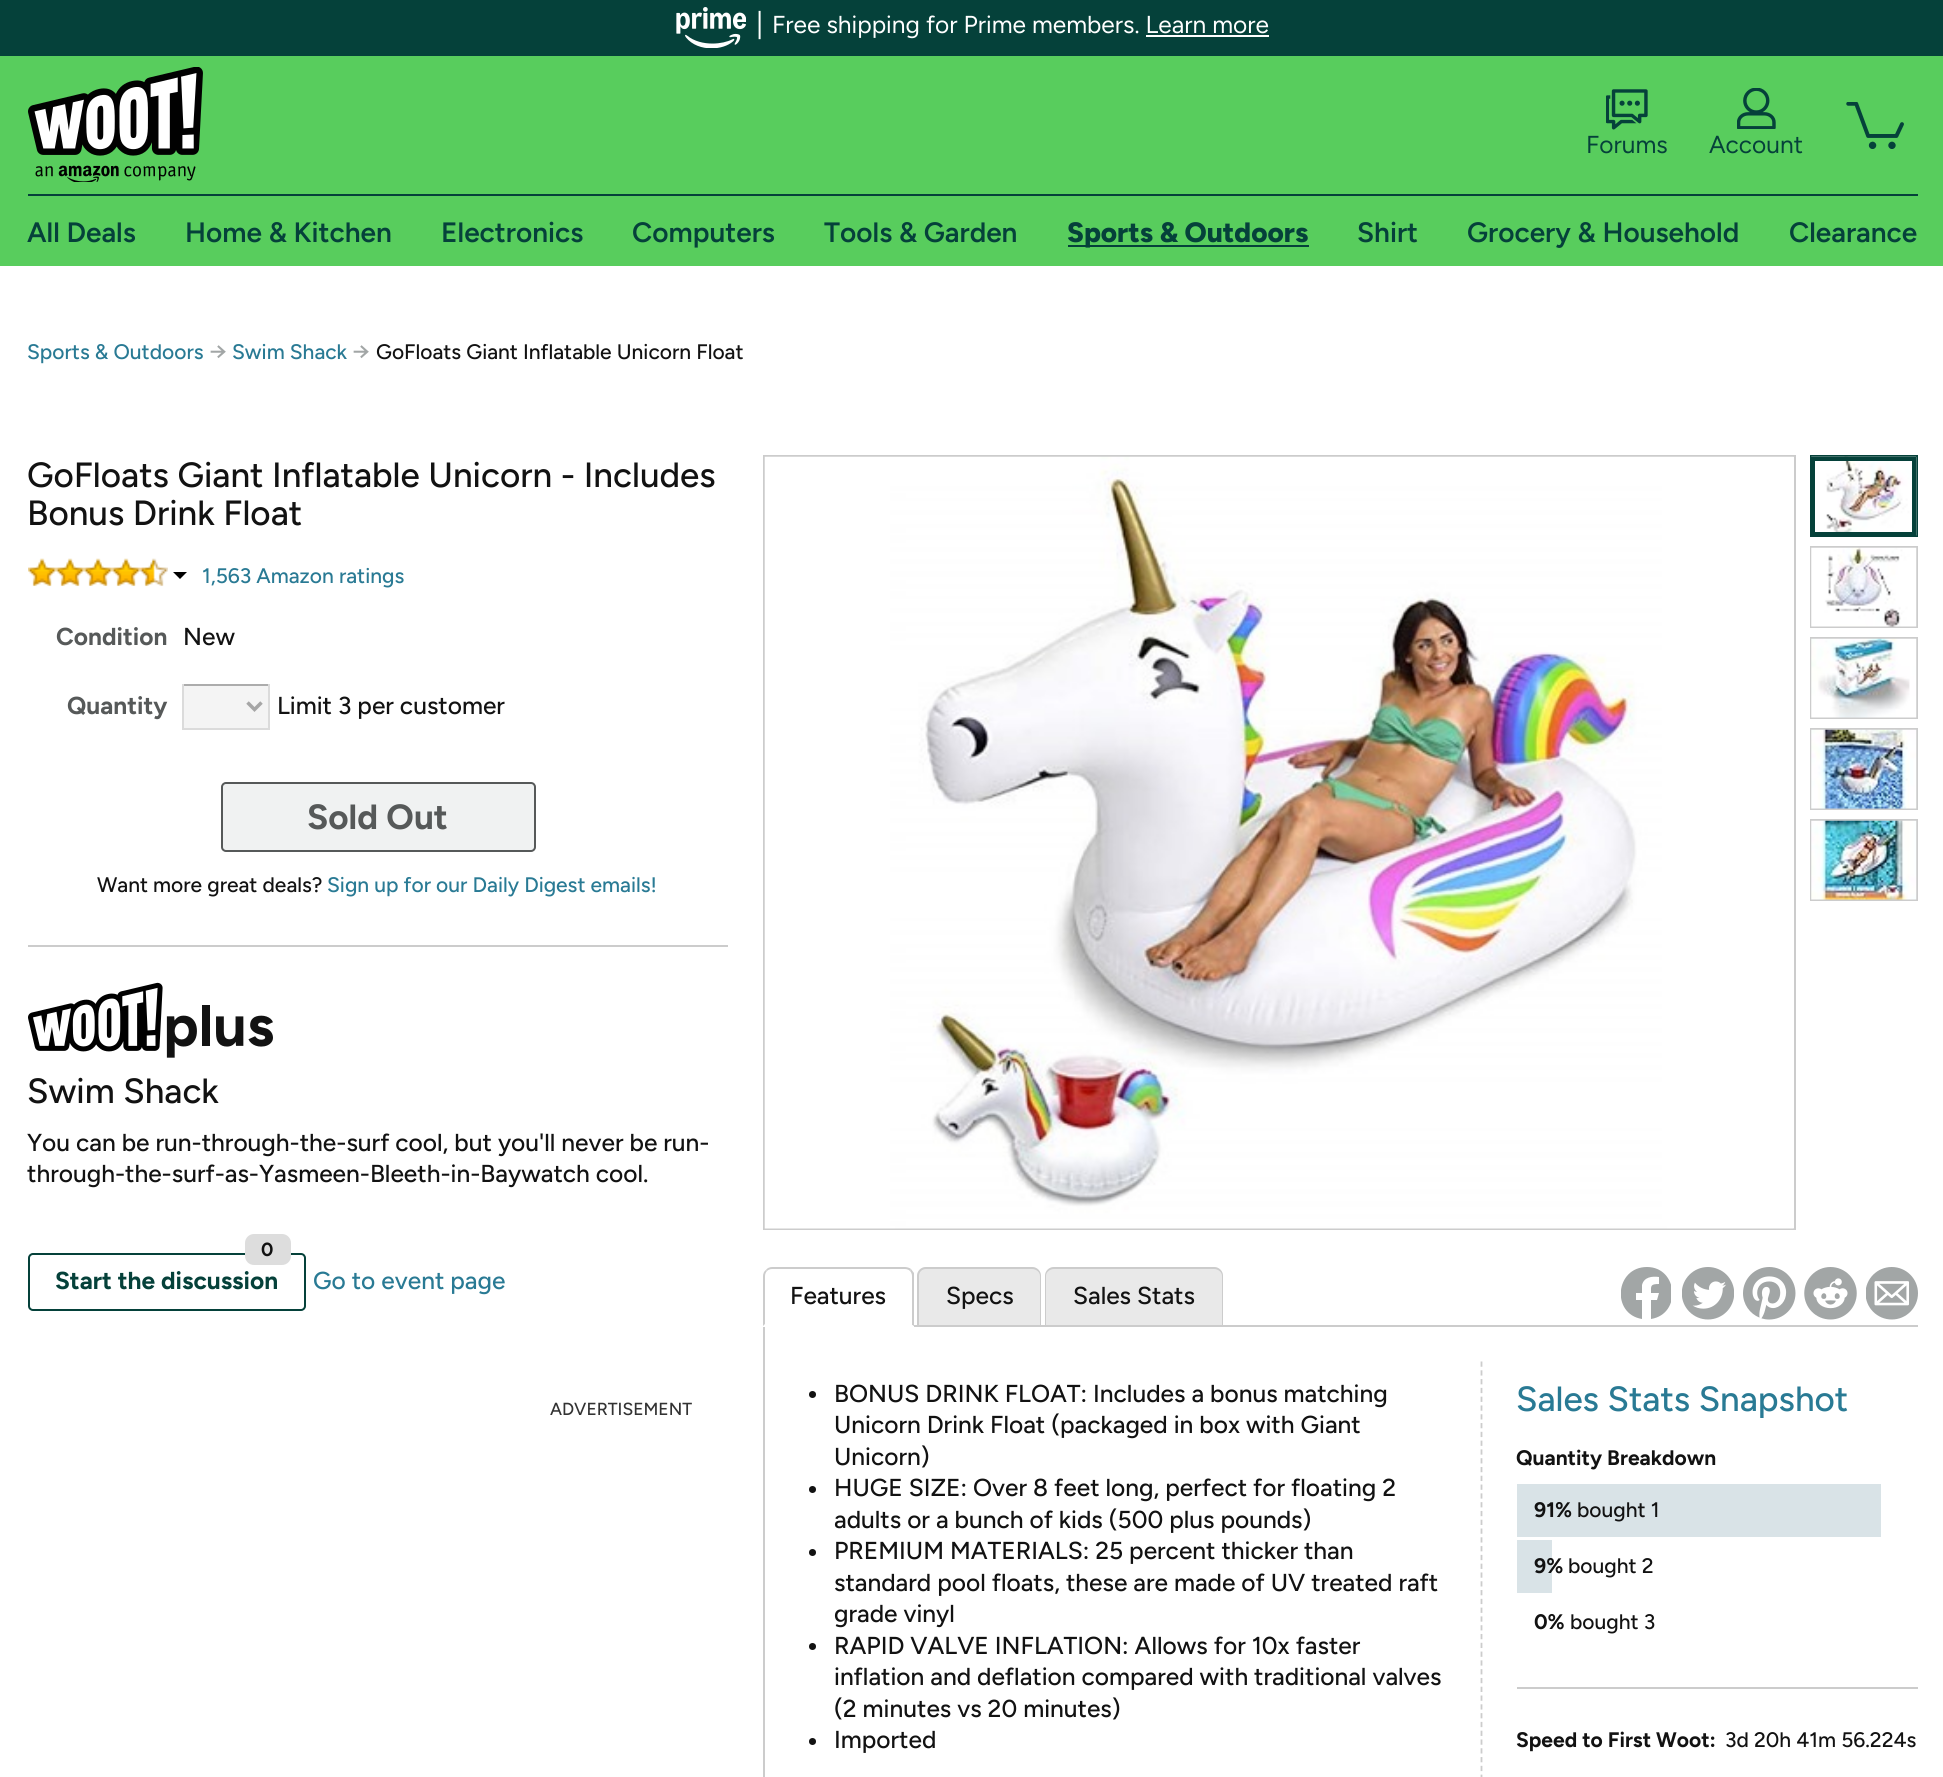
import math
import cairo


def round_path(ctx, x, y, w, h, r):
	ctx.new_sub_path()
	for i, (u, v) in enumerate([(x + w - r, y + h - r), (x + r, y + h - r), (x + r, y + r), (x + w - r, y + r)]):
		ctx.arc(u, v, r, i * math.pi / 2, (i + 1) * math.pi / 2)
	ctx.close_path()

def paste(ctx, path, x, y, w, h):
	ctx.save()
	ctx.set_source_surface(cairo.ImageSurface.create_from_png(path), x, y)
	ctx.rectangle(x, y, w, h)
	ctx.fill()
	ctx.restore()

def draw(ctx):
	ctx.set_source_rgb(1, 1, 1)
	ctx.paint()
	ctx.set_source_rgb(0.02, 0.255, 0.227)
	ctx.rectangle(0, 0, 1943, 56)
	ctx.fill()
	paste(ctx, 'media/1.png', 676, 7, 70, 41)
	ctx.select_font_face('Figtree')
	ctx.set_font_size(28)
	ctx.set_source_rgb(1, 1, 1)
	ctx.move_to(756, 33)
	ctx.show_text('|')
	ctx.set_font_size(24.5)
	ctx.move_to(772, 33)
	ctx.show_text('Free shipping for Prime members. Learn more')
	ctx.rectangle(1146, 35, 123, 2)
	ctx.fill()
	ctx.set_source_rgb(0.345, 0.804, 0.365)
	ctx.rectangle(0, 56, 1943, 210)
	ctx.fill()
	ctx.set_source_rgb(0.02, 0.255, 0.227)
	ctx.rectangle(28, 194, 1890, 2)
	ctx.fill()
	paste(ctx, 'media/2.png', 28, 67, 175, 115)
	paste(ctx, 'media/3.png', 1606, 89, 42, 41)
	ctx.move_to(1586, 153)
	ctx.show_text('Forums')
	paste(ctx, 'media/4.png', 1737, 88, 39, 41)
	ctx.move_to(1709, 153)
	ctx.show_text('Account')
	paste(ctx, 'media/5.png', 1846, 102, 58, 47)
	ctx.select_font_face('Figtree SemiBold')
	ctx.set_font_size(28)
	for x, y, s in [
		(27, 242, 'All Deals'),
		(185, 242, 'Home & Kitchen'),
		(441, 242, 'Electronics'),
		(632, 242, 'Computers'),
		(824, 242, 'Tools & Garden'),
	]:
		ctx.move_to(x, y)
		ctx.show_text(s)
	ctx.rectangle(1068, 245, 241, 2)
	ctx.fill()
	ctx.select_font_face('Figtree ExtraBold')
	ctx.move_to(1067, 242)
	ctx.show_text('Sports & Outdoors')
	ctx.select_font_face('Figtree SemiBold')
	for x, y, s in [
		(1357, 242, 'Shirt'),
		(1467, 242, 'Grocery & Household'),
		(1789, 242, 'Clearance'),
	]:
		ctx.move_to(x, y)
		ctx.show_text(s)
	ctx.select_font_face('Figtree Medium')
	ctx.set_font_size(21)
	ctx.set_source_rgb(0.161, 0.478, 0.58)
	ctx.move_to(27, 359)
	ctx.show_text('Sports & Outdoors')
	ctx.set_font_size(24.5)
	ctx.set_source_rgb(0.635, 0.651, 0.651)
	ctx.move_to(209, 359)
	ctx.show_text('→')
	ctx.set_font_size(21)
	ctx.set_source_rgb(0.161, 0.478, 0.58)
	ctx.move_to(232, 359)
	ctx.show_text('Swim Shack')
	ctx.set_font_size(24.5)
	ctx.set_source_rgb(0.635, 0.651, 0.651)
	ctx.move_to(352, 359)
	ctx.show_text('→')
	ctx.set_font_size(21)
	ctx.set_source_rgb(0.071, 0.071, 0.071)
	ctx.move_to(376, 359)
	ctx.show_text('GoFloats Giant Inflatable Unicorn Float')
	ctx.set_source_rgb(0.8, 0.8, 0.8)
	ctx.rectangle(28, 945, 700, 2)
	ctx.fill()
	ctx.set_font_size(35)
	ctx.set_source_rgb(0.071, 0.071, 0.071)
	ctx.move_to(27, 487)
	ctx.show_text('GoFloats Giant Inflatable Unicorn - Includes')
	ctx.move_to(27, 525)
	ctx.show_text('Bonus Drink Float')
	paste(ctx, 'media/6.png', 28, 558, 140, 29)
	ctx.set_source_rgb(0, 0, 0)
	ctx.new_path()
	ctx.move_to(173, 572)
	ctx.line_to(187, 572)
	ctx.line_to(180, 579)
	ctx.close_path()
	ctx.fill()
	ctx.set_font_size(21)
	ctx.set_source_rgb(0.161, 0.478, 0.58)
	ctx.move_to(202, 583)
	ctx.show_text('1,563 Amazon ratings')
	ctx.select_font_face('Figtree', cairo.FONT_SLANT_NORMAL, cairo.FONT_WEIGHT_BOLD)
	ctx.set_font_size(24.5)
	ctx.set_source_rgb(0.337, 0.349, 0.349)
	ctx.move_to(56, 645)
	ctx.show_text('Condition')
	ctx.select_font_face('Figtree Medium')
	ctx.set_source_rgb(0.071, 0.071, 0.071)
	ctx.move_to(183, 645)
	ctx.show_text('New')
	ctx.select_font_face('Figtree', cairo.FONT_SLANT_NORMAL, cairo.FONT_WEIGHT_BOLD)
	ctx.set_source_rgb(0.337, 0.349, 0.349)
	ctx.move_to(67, 714)
	ctx.show_text('Quantity')
	ctx.set_source_rgb(0.957, 0.957, 0.957)
	ctx.rectangle(184, 686, 84, 42)
	ctx.fill()
	ctx.set_source_rgb(0.675, 0.675, 0.675)
	ctx.rectangle(182, 684, 88, 2)
	ctx.fill()
	ctx.set_source_rgb(0.859, 0.859, 0.859)
	ctx.rectangle(268, 684, 2, 46)
	ctx.rectangle(182, 728, 88, 2)
	ctx.rectangle(182, 684, 2, 46)
	ctx.fill()
	ctx.new_path()
	ctx.move_to(247.5, 702.5)
	ctx.line_to(254.5, 709.5)
	ctx.line_to(261.5, 702.5)
	ctx.set_source_rgb(0.651, 0.651, 0.651)
	ctx.set_line_width(3.5)
	ctx.stroke()
	ctx.select_font_face('Figtree Medium')
	ctx.set_source_rgb(0.071, 0.071, 0.071)
	ctx.move_to(277, 714)
	ctx.show_text('Limit 3 per customer')
	ctx.set_source_rgb(0.941, 0.949, 0.949)
	round_path(ctx, 222, 783, 313, 68, 4)
	ctx.fill_preserve()
	ctx.set_source_rgb(0.337, 0.349, 0.349)
	ctx.set_line_width(2)
	ctx.stroke()
	ctx.select_font_face('Figtree', cairo.FONT_SLANT_NORMAL, cairo.FONT_WEIGHT_BOLD)
	ctx.set_font_size(35)
	ctx.move_to(307, 829)
	ctx.show_text('Sold Out')
	ctx.select_font_face('Figtree Medium')
	ctx.set_font_size(21)
	ctx.set_source_rgb(0.071, 0.071, 0.071)
	ctx.move_to(97, 892)
	ctx.show_text('Want more great deals?')
	ctx.set_source_rgb(0.161, 0.478, 0.58)
	ctx.move_to(327, 892)
	ctx.show_text('Sign up for our Daily Digest emails!')
	paste(ctx, 'media/7.png', 28, 982, 245, 76)
	ctx.set_font_size(35)
	ctx.set_source_rgb(0.071, 0.071, 0.071)
	ctx.move_to(27, 1103)
	ctx.show_text('Swim Shack')
	ctx.set_font_size(24.5)
	ctx.move_to(27, 1151)
	ctx.show_text('You can be run-through-the-surf cool, but you\'ll never be run-')
	ctx.move_to(27, 1182)
	ctx.show_text('through-the-surf-as-Yasmeen-Bleeth-in-Baywatch cool.')
	round_path(ctx, 29, 1254, 276, 56, 4)
	ctx.set_source_rgb(0.02, 0.255, 0.227)
	ctx.stroke()
	ctx.set_source_rgb(0.867, 0.867, 0.867)
	round_path(ctx, 245, 1234, 46, 31, 9)
	ctx.fill()
	ctx.select_font_face('Figtree', cairo.FONT_SLANT_NORMAL, cairo.FONT_WEIGHT_BOLD)
	ctx.set_font_size(19)
	ctx.set_source_rgb(0.071, 0.071, 0.071)
	ctx.move_to(261, 1256)
	ctx.show_text('0')
	ctx.set_font_size(24.5)
	ctx.set_source_rgb(0.02, 0.255, 0.227)
	ctx.move_to(55, 1289)
	ctx.show_text('Start the discussion')
	ctx.select_font_face('Figtree Medium')
	ctx.set_source_rgb(0.161, 0.478, 0.58)
	ctx.move_to(313, 1289)
	ctx.show_text('Go to event page')
	ctx.set_font_size(17.5)
	ctx.set_source_rgb(0.2, 0.2, 0.2)
	ctx.move_to(550, 1415)
	ctx.show_text('ADVERTISEMENT')
	ctx.rectangle(764, 456, 1031, 773)
	ctx.set_source_rgb(0.8, 0.8, 0.8)
	ctx.stroke()
	paste(ctx, 'media/8.png', 764, 456, 1030, 773)
	ctx.rectangle(1811, 456, 106, 80)
	ctx.set_source_rgb(0.02, 0.255, 0.227)
	ctx.stroke()
	paste(ctx, 'media/9.png', 1811, 456, 106, 80)
	ctx.rectangle(1813, 459, 101, 75)
	ctx.set_line_width(4)
	ctx.stroke()
	ctx.rectangle(1811, 547, 106, 80)
	ctx.set_source_rgb(0.8, 0.8, 0.8)
	ctx.set_line_width(2)
	ctx.stroke()
	paste(ctx, 'media/10.png', 1811, 547, 106, 80)
	ctx.rectangle(1811, 638, 106, 80)
	ctx.stroke()
	paste(ctx, 'media/11.png', 1811, 638, 106, 80)
	ctx.rectangle(1811, 729, 106, 80)
	ctx.stroke()
	paste(ctx, 'media/12.png', 1811, 729, 106, 80)
	ctx.rectangle(1811, 820, 106, 80)
	ctx.stroke()
	paste(ctx, 'media/13.png', 1811, 820, 106, 80)
	ctx.save()
	ctx.rectangle(1621, 1267, 50, 53)
	ctx.clip()
	ctx.set_source_rgb(0.635, 0.651, 0.651)
	ctx.new_path()
	ctx.move_to(1647, 1267)
	ctx.curve_to(1615, 1267, 1611, 1314, 1642, 1319)
	ctx.line_to(1642, 1300)
	ctx.line_to(1636, 1300)
	ctx.line_to(1636, 1293)
	ctx.line_to(1642, 1293)
	ctx.line_to(1642, 1285)
	ctx.curve_to(1644, 1277, 1652, 1276, 1659, 1277)
	ctx.line_to(1659, 1284)
	ctx.curve_to(1650, 1284, 1651, 1286, 1651, 1293)
	ctx.line_to(1659, 1293)
	ctx.line_to(1657, 1300)
	ctx.line_to(1651, 1300)
	ctx.line_to(1651, 1319)
	ctx.curve_to(1682, 1314, 1678, 1267, 1647, 1267)
	ctx.fill()
	ctx.restore()
	paste(ctx, 'media/14.png', 1682, 1267, 52, 53)
	paste(ctx, 'media/15.png', 1743, 1267, 53, 53)
	paste(ctx, 'media/16.png', 1804, 1267, 53, 53)
	paste(ctx, 'media/17.png', 1866, 1267, 52, 53)
	ctx.rectangle(914, 1325, 1004, 2)
	ctx.fill()
	ctx.new_path()
	ctx.move_to(772, 1267)
	ctx.curve_to(770, 1267, 767, 1268, 766, 1270)
	ctx.line_to(767, 1271)
	ctx.curve_to(768, 1270, 770, 1269, 772, 1269)
	ctx.line_to(905, 1269)
	ctx.curve_to(907, 1269, 909, 1270, 910, 1271)
	ctx.line_to(911, 1269)
	ctx.curve_to(910, 1268, 907, 1267, 905, 1267)
	ctx.close_path()
	ctx.fill()
	ctx.new_path()
	ctx.move_to(914, 1326)
	ctx.line_to(912, 1325)
	ctx.line_to(912, 1276)
	ctx.curve_to(912, 1274, 911, 1272, 910, 1271)
	ctx.line_to(911, 1269)
	ctx.line_to(914, 1273)
	ctx.close_path()
	ctx.fill()
	ctx.set_source_rgb(1, 1, 1)
	ctx.new_path()
	ctx.move_to(913, 1326)
	ctx.line_to(764, 1326)
	ctx.line_to(765, 1324)
	ctx.line_to(765, 1325)
	ctx.line_to(912, 1325)
	ctx.close_path()
	ctx.fill()
	ctx.set_source_rgb(0.8, 0.8, 0.8)
	ctx.new_path()
	ctx.move_to(763, 1276)
	ctx.line_to(763, 1326)
	ctx.line_to(765, 1324)
	ctx.line_to(765, 1276)
	ctx.curve_to(765, 1274, 766, 1272, 767, 1271)
	ctx.line_to(766, 1270)
	ctx.curve_to(764, 1271, 763, 1274, 763, 1276)
	ctx.close_path()
	ctx.fill()
	ctx.set_font_size(24.5)
	ctx.set_source_rgb(0.071, 0.071, 0.071)
	ctx.move_to(790, 1304)
	ctx.show_text('Features')
	ctx.set_source_rgb(0.914, 0.914, 0.914)
	ctx.new_path()
	ctx.move_to(926, 1267)
	ctx.line_to(1032, 1267)
	ctx.curve_to(1037, 1267, 1041, 1271, 1041, 1276)
	ctx.line_to(1041, 1325)
	ctx.line_to(917, 1325)
	ctx.line_to(917, 1276)
	ctx.curve_to(917, 1271, 921, 1267, 926, 1267)
	ctx.close_path()
	ctx.fill()
	ctx.set_source_rgb(0.8, 0.8, 0.8)
	ctx.set_fill_rule(cairo.FILL_RULE_EVEN_ODD)
	ctx.new_path()
	ctx.move_to(926, 1267)
	ctx.line_to(1032, 1267)
	ctx.curve_to(1037, 1267, 1041, 1271, 1041, 1276)
	ctx.line_to(1041, 1325)
	ctx.line_to(917, 1325)
	ctx.line_to(917, 1276)
	ctx.curve_to(917, 1271, 921, 1267, 926, 1267)
	ctx.close_path()
	ctx.move_to(926, 1269)
	ctx.line_to(1032, 1269)
	ctx.curve_to(1036, 1269, 1040, 1272, 1040, 1276)
	ctx.line_to(1040, 1325)
	ctx.line_to(919, 1325)
	ctx.line_to(919, 1276)
	ctx.curve_to(919, 1272, 922, 1269, 926, 1269)
	ctx.close_path()
	ctx.fill()
	ctx.set_source_rgb(0.071, 0.071, 0.071)
	ctx.move_to(946, 1304)
	ctx.show_text('Specs')
	ctx.set_source_rgb(0.914, 0.914, 0.914)
	ctx.new_path()
	ctx.move_to(1054, 1267)
	ctx.line_to(1214, 1267)
	ctx.curve_to(1219, 1267, 1223, 1271, 1223, 1276)
	ctx.line_to(1223, 1325)
	ctx.line_to(1045, 1325)
	ctx.line_to(1045, 1276)
	ctx.curve_to(1045, 1271, 1049, 1267, 1054, 1267)
	ctx.close_path()
	ctx.fill()
	ctx.set_source_rgb(0.8, 0.8, 0.8)
	ctx.new_path()
	ctx.move_to(1054, 1267)
	ctx.line_to(1214, 1267)
	ctx.curve_to(1219, 1267, 1223, 1271, 1223, 1276)
	ctx.line_to(1223, 1325)
	ctx.line_to(1045, 1325)
	ctx.line_to(1045, 1276)
	ctx.curve_to(1045, 1271, 1049, 1267, 1054, 1267)
	ctx.close_path()
	ctx.move_to(1054, 1269)
	ctx.line_to(1214, 1269)
	ctx.curve_to(1218, 1269, 1222, 1272, 1222, 1276)
	ctx.line_to(1222, 1325)
	ctx.line_to(1046, 1325)
	ctx.line_to(1046, 1276)
	ctx.curve_to(1046, 1272, 1050, 1269, 1054, 1269)
	ctx.close_path()
	ctx.fill()
	ctx.set_source_rgb(0.071, 0.071, 0.071)
	ctx.move_to(1073, 1304)
	ctx.show_text('Sales Stats')
	ctx.set_source_rgb(0.8, 0.8, 0.8)
	ctx.rectangle(763, 1327, 2, 450)
	ctx.fill()
	ctx.set_source_rgb(0.071, 0.071, 0.071)
	ctx.arc(812.5, 1394.5, 3.5, 0, 2 * math.pi)
	ctx.fill()
	for x, y, s in [
		(834, 1402, 'BONUS DRINK FLOAT: Includes a bonus matching'),
		(834, 1433, 'Unicorn Drink Float (packaged in box with Giant'),
		(834, 1465, 'Unicorn)'),
	]:
		ctx.move_to(x, y)
		ctx.show_text(s)
	ctx.new_path()
	ctx.arc(812.5, 1489.5, 3.5, 0, 2 * math.pi)
	ctx.fill()
	ctx.move_to(834, 1496)
	ctx.show_text('HUGE SIZE: Over 8 feet long, perfect for floating 2')
	ctx.move_to(834, 1528)
	ctx.show_text('adults or a bunch of kids (500 plus pounds)')
	ctx.new_path()
	ctx.arc(812.5, 1552.5, 3.5, 0, 2 * math.pi)
	ctx.fill()
	for x, y, s in [
		(834, 1559, 'PREMIUM MATERIALS: 25 percent thicker than'),
		(834, 1591, 'standard pool floats, these are made of UV treated raft'),
		(834, 1622, 'grade vinyl'),
	]:
		ctx.move_to(x, y)
		ctx.show_text(s)
	ctx.new_path()
	ctx.arc(812.5, 1646.5, 3.5, 0, 2 * math.pi)
	ctx.fill()
	for x, y, s in [
		(834, 1654, 'RAPID VALVE INFLATION: Allows for 10x faster'),
		(834, 1685, 'inflation and deflation compared with traditional valves'),
		(834, 1717, '(2 minutes vs 20 minutes)'),
	]:
		ctx.move_to(x, y)
		ctx.show_text(s)
	ctx.new_path()
	ctx.arc(812.5, 1741.5, 3.5, 0, 2 * math.pi)
	ctx.fill()
	ctx.move_to(834, 1748)
	ctx.show_text('Imported')
	ctx.new_path()
	ctx.move_to(1481.5, 1361.5)
	ctx.line_to(1481.5, 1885)
	ctx.set_source_rgb(0.8, 0.8, 0.8)
	ctx.set_line_width(1.8)
	ctx.set_dash([5.25, 3.54])
	ctx.stroke()
	ctx.set_font_size(35)
	ctx.set_source_rgb(0.161, 0.478, 0.58)
	ctx.move_to(1516, 1411)
	ctx.show_text('Sales Stats Snapshot')
	ctx.set_source_rgb(0.8, 0.8, 0.8)
	ctx.rectangle(1517, 1687, 401, 2)
	ctx.fill()
	ctx.select_font_face('Figtree', cairo.FONT_SLANT_NORMAL, cairo.FONT_WEIGHT_BOLD)
	ctx.set_font_size(21)
	ctx.set_source_rgb(0.071, 0.071, 0.071)
	ctx.move_to(1516, 1465)
	ctx.show_text('Quantity Breakdown')
	ctx.set_source_rgb(0.851, 0.89, 0.906)
	ctx.rectangle(1517, 1484, 364, 53)
	ctx.fill()
	ctx.set_source_rgb(0.071, 0.071, 0.071)
	ctx.move_to(1534, 1517)
	ctx.show_text('91%')
	ctx.select_font_face('Figtree Medium')
	ctx.move_to(1577, 1517)
	ctx.show_text('bought 1')
	ctx.set_source_rgb(0.851, 0.89, 0.906)
	ctx.rectangle(1517, 1540, 35, 53)
	ctx.fill()
	ctx.select_font_face('Figtree', cairo.FONT_SLANT_NORMAL, cairo.FONT_WEIGHT_BOLD)
	ctx.set_source_rgb(0.071, 0.071, 0.071)
	ctx.move_to(1534, 1573)
	ctx.show_text('9%')
	ctx.select_font_face('Figtree Medium')
	ctx.move_to(1568, 1573)
	ctx.show_text('bought 2')
	ctx.select_font_face('Figtree', cairo.FONT_SLANT_NORMAL, cairo.FONT_WEIGHT_BOLD)
	ctx.move_to(1534, 1629)
	ctx.show_text('0%')
	ctx.select_font_face('Figtree Medium')
	ctx.move_to(1570, 1629)
	ctx.show_text('bought 3')
	ctx.select_font_face('Figtree', cairo.FONT_SLANT_NORMAL, cairo.FONT_WEIGHT_BOLD)
	ctx.move_to(1516, 1747)
	ctx.show_text('Speed to First Woot:')
	ctx.select_font_face('Figtree Medium')
	ctx.move_to(1725, 1747)
	ctx.show_text('3d 20h 41m 56.224s')


surface = cairo.ImageSurface(cairo.FORMAT_RGB24, 1943, 1777)
ctx = cairo.Context(surface)
options = cairo.FontOptions()
options.set_hint_metrics(cairo.HINT_METRICS_OFF)
options.set_hint_style(cairo.HINT_STYLE_NONE)
ctx.set_font_options(options)
ctx.set_miter_limit(4)
draw(ctx)
surface.write_to_png('image.png')
